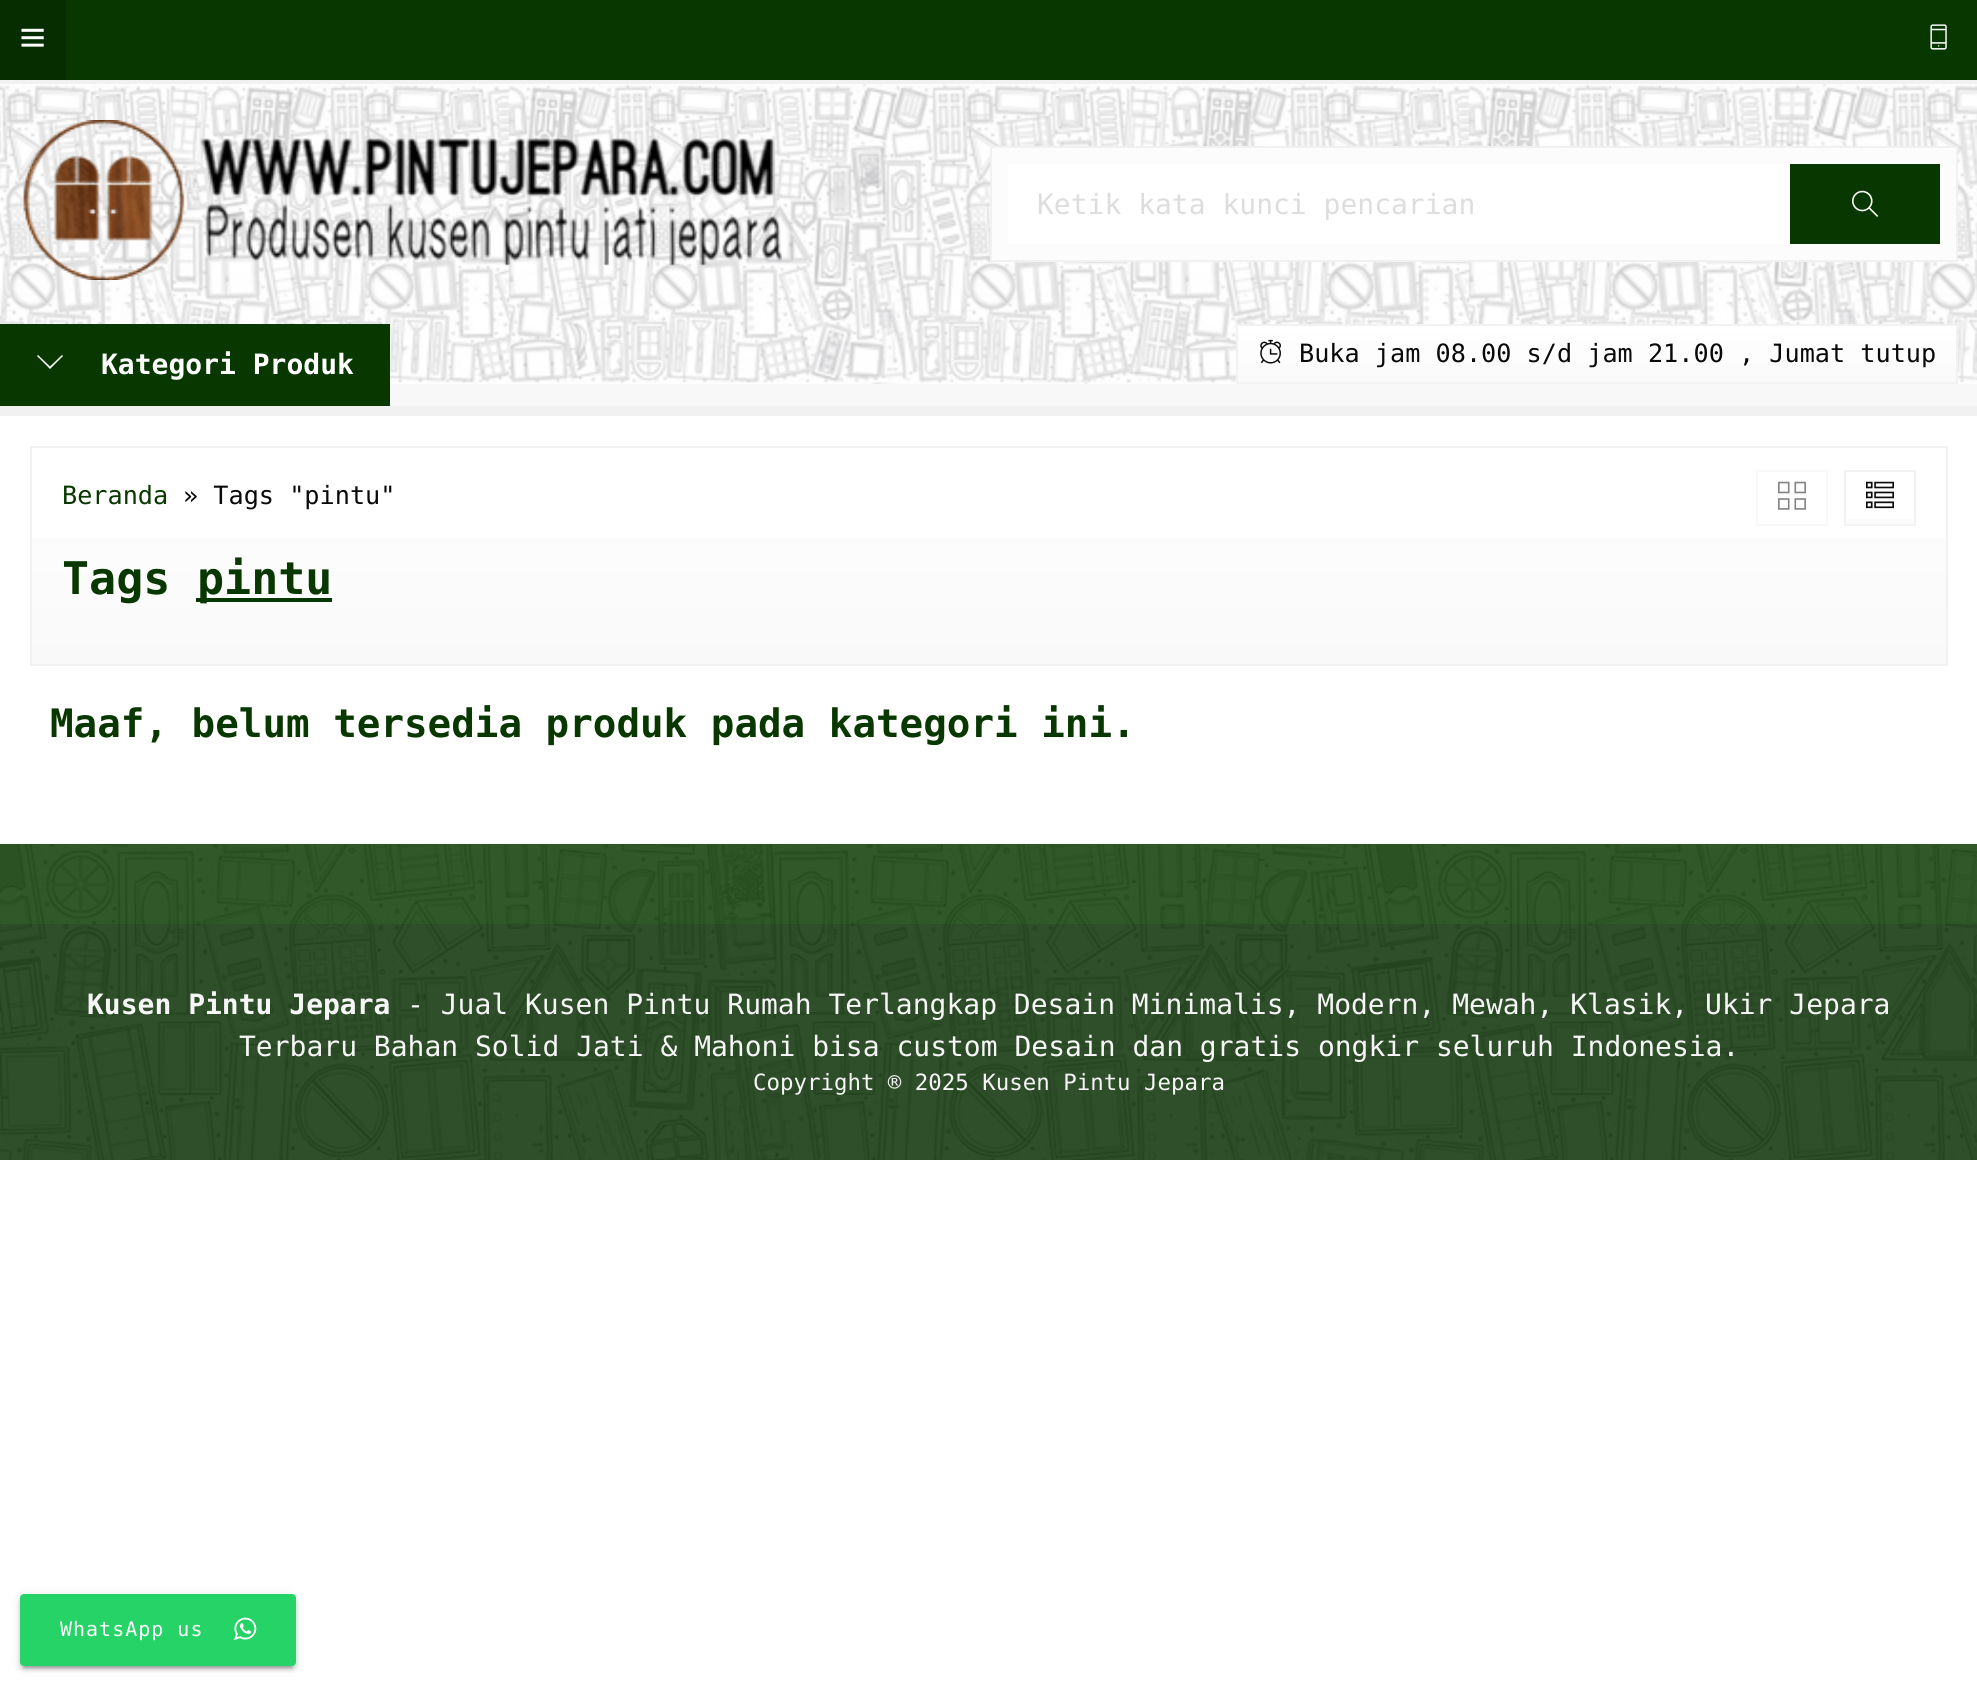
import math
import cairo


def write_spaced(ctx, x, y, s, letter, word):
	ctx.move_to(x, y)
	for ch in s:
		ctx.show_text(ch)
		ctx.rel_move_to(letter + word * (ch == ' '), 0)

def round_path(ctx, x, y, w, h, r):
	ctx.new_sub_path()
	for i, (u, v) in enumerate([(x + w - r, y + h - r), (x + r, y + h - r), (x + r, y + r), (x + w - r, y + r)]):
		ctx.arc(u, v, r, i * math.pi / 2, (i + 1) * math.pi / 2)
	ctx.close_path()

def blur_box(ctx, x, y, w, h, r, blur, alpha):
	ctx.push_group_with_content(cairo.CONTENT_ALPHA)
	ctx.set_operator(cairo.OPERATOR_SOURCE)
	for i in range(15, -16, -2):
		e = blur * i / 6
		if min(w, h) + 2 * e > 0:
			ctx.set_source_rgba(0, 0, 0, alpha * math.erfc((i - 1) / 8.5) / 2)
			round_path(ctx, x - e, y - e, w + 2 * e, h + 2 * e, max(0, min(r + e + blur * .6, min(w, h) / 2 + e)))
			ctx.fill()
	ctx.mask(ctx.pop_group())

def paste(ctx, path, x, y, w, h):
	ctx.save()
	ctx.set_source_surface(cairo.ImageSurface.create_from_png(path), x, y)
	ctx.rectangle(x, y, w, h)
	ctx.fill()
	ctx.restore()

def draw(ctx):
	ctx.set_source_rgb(1, 1, 1)
	ctx.paint()
	ctx.set_source_rgb(0.035, 0.22, 0)
	ctx.rectangle(66, 0, 1911, 80)
	ctx.fill()
	ctx.set_source_rgb(0.027, 0.176, 0)
	ctx.rectangle(0, 0, 66, 80)
	ctx.fill()
	paste(ctx, 'media/1.png', 21, 28, 23, 19)
	paste(ctx, 'media/2.png', 1930, 24, 17, 26)
	ctx.set_source_rgb(0.945, 0.945, 0.945)
	ctx.rectangle(0, 80, 1977, 4)
	ctx.fill()
	ctx.set_source_rgb(0.969, 0.969, 0.969)
	ctx.rectangle(390, 384, 1587, 22)
	ctx.fill()
	paste(ctx, 'media/3.png', 0, 84, 1977, 300)
	paste(ctx, 'media/4.png', 23, 120, 759, 160)
	ctx.set_source_rgb(0.988, 0.988, 0.988)
	ctx.rectangle(991, 147, 966, 114)
	ctx.fill_preserve()
	ctx.set_source_rgb(0.945, 0.945, 0.945)
	ctx.stroke()
	ctx.set_source_rgb(1, 1, 1)
	ctx.rectangle(1008, 164, 782, 80)
	ctx.fill()
	ctx.select_font_face('DejaVu Sans Mono')
	ctx.set_font_size(28)
	ctx.set_source_rgb(0.867, 0.867, 0.867)
	ctx.move_to(1037, 214)
	ctx.show_text('Ketik kata kunci pencarian')
	ctx.set_source_rgb(0.035, 0.22, 0)
	ctx.rectangle(1790, 164, 150, 80)
	ctx.fill()
	paste(ctx, 'media/5.png', 1852, 190, 27, 27)
	ctx.rectangle(0, 324, 390, 82)
	ctx.fill()
	ctx.set_source_rgb(1, 1, 1)
	ctx.new_path()
	ctx.move_to(63, 356)
	ctx.line_to(50, 369)
	ctx.line_to(37, 356)
	ctx.line_to(38, 355)
	ctx.line_to(50, 366.5)
	ctx.line_to(62, 355)
	ctx.close_path()
	ctx.fill()
	ctx.select_font_face('DejaVu Sans Mono', cairo.FONT_SLANT_NORMAL, cairo.FONT_WEIGHT_BOLD)
	ctx.move_to(101, 374)
	ctx.show_text('Kategori Produk')
	gradient = cairo.LinearGradient(1597, 382, 1597, 326)
	gradient.add_color_stop_rgba(0, 0.98, 0.98, 0.98, 1)
	gradient.add_color_stop_rgba(1, 1, 1, 1, 1)
	ctx.set_source(gradient)
	ctx.rectangle(1238, 326, 718, 56)
	ctx.fill()
	ctx.rectangle(1237, 325, 720, 58)
	ctx.set_source_rgb(0.949, 0.949, 0.949)
	ctx.stroke()
	paste(ctx, 'media/6.png', 1260, 339, 21, 25)
	ctx.select_font_face('DejaVu Sans Mono')
	ctx.set_font_size(25.2)
	ctx.set_source_rgb(0.039, 0.039, 0.039)
	ctx.move_to(1299, 362)
	ctx.show_text('Buka jam 08.00 s/d jam 21.00 , Jumat tutup')
	ctx.set_source_rgb(0.945, 0.945, 0.945)
	ctx.rectangle(0, 406, 1977, 10)
	ctx.fill()
	gradient = cairo.LinearGradient(989, 448, 989, 664)
	gradient.add_color_stop_rgba(0, 1, 1, 1, 1)
	gradient.add_color_stop_rgba(1, 0.976, 0.976, 0.976, 1)
	ctx.set_source(gradient)
	ctx.rectangle(32, 538, 1914, 126)
	ctx.fill()
	ctx.rectangle(31, 447, 1916, 218)
	ctx.set_source_rgb(0.945, 0.945, 0.945)
	ctx.stroke()
	ctx.set_source_rgb(0.035, 0.22, 0)
	ctx.move_to(62, 504)
	ctx.show_text('Beranda')
	ctx.set_source_rgb(0.039, 0.039, 0.039)
	ctx.move_to(183, 504)
	ctx.show_text('» Tags "pintu"')
	ctx.rectangle(1757, 471, 70, 54)
	ctx.set_source_rgb(0.973, 0.973, 0.973)
	ctx.stroke()
	gradient = cairo.LinearGradient(1880, 524, 1880, 472)
	gradient.add_color_stop_rgba(0, 0.98, 0.98, 0.98, 1)
	gradient.add_color_stop_rgba(1, 1, 1, 1, 1)
	ctx.set_source(gradient)
	ctx.rectangle(1846, 519, 68, 5)
	ctx.fill()
	ctx.rectangle(1845, 471, 70, 54)
	ctx.set_source_rgb(0.949, 0.949, 0.949)
	ctx.stroke()
	paste(ctx, 'media/7.png', 1778, 481, 28, 29)
	paste(ctx, 'media/8.png', 1866, 481, 28, 28)
	ctx.select_font_face('DejaVu Sans Mono', cairo.FONT_SLANT_NORMAL, cairo.FONT_WEIGHT_BOLD)
	ctx.set_font_size(45)
	ctx.set_source_rgb(0.035, 0.22, 0)
	ctx.move_to(62, 594)
	ctx.show_text('Tags')
	ctx.rectangle(196, 598, 136, 4)
	ctx.fill()
	ctx.move_to(197, 594)
	ctx.show_text('pintu')
	ctx.set_font_size(39.2)
	ctx.move_to(50, 737)
	ctx.show_text('Maaf, belum tersedia produk pada kategori ini.')
	ctx.rectangle(0, 844, 1977, 80)
	ctx.fill()
	ctx.set_source_rgb(0.027, 0.176, 0)
	ctx.rectangle(0, 924, 1977, 236)
	ctx.fill()
	paste(ctx, 'media/9.png', 0, 844, 1977, 316)
	ctx.set_font_size(28)
	ctx.set_source_rgb(0.961, 0.961, 0.961)
	ctx.move_to(87, 1014)
	ctx.show_text('Kusen Pintu Jepara')
	ctx.select_font_face('DejaVu Sans Mono')
	ctx.move_to(407, 1014)
	ctx.show_text('- Jual Kusen Pintu Rumah Terlangkap Desain Minimalis, Modern, Mewah, Klasik, Ukir Jepara')
	ctx.move_to(239, 1056)
	ctx.show_text('Terbaru Bahan Solid Jati & Mahoni bisa custom Desain dan gratis ongkir seluruh Indonesia.')
	ctx.set_font_size(22.4)
	ctx.move_to(753, 1090)
	ctx.show_text('Copyright ® 2025 Kusen Pintu Jepara')
	ctx.set_source_rgb(0, 0, 0)
	blur_box(ctx, 24, 1604, 268, 64, 0, 1, 0.2)
	blur_box(ctx, 20, 1596, 276, 72, 4, 5, 0.12)
	blur_box(ctx, 20, 1598, 276, 72, 4, 2, 0.14)
	ctx.set_source_rgb(0.145, 0.827, 0.4)
	round_path(ctx, 20, 1594, 276, 72, 4)
	ctx.fill()
	ctx.set_font_size(20)
	ctx.set_source_rgb(1, 1, 1)
	write_spaced(ctx, 60, 1636, 'WhatsApp us', 1, 0)
	paste(ctx, 'media/10.png', 234, 1617, 23, 23)


surface = cairo.ImageSurface(cairo.FORMAT_RGB24, 1977, 1686)
ctx = cairo.Context(surface)
options = cairo.FontOptions()
options.set_hint_metrics(cairo.HINT_METRICS_OFF)
options.set_hint_style(cairo.HINT_STYLE_NONE)
ctx.set_font_options(options)
ctx.set_miter_limit(4)
draw(ctx)
surface.write_to_png('image.png')
